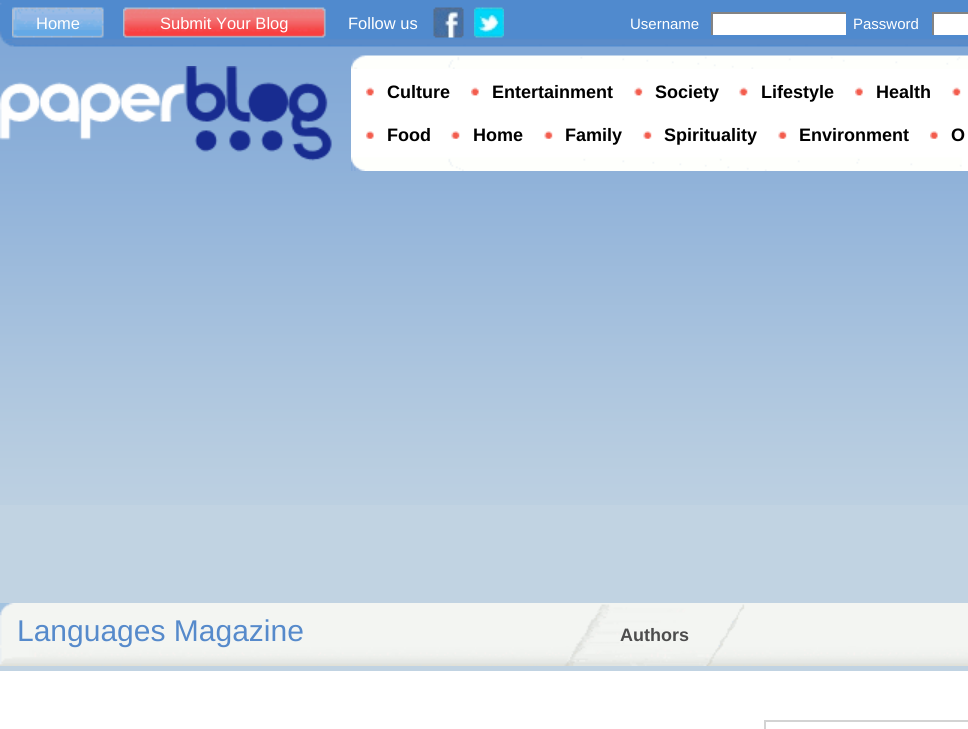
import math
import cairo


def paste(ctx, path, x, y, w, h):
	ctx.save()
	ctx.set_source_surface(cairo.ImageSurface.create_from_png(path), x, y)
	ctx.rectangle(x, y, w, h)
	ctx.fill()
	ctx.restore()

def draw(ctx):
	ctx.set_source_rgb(0.757, 0.827, 0.886)
	ctx.paint()
	paste(ctx, 'media/1.png', 0, 38, 968, 467)
	paste(ctx, 'media/2.png', 0, 0, 968, 47)
	paste(ctx, 'media/3.png', 12, 7, 92, 31)
	ctx.select_font_face('Liberation Sans')
	ctx.set_font_size(16.5)
	ctx.set_source_rgb(1, 1, 1)
	ctx.move_to(36, 29)
	ctx.show_text('Home')
	paste(ctx, 'media/4.png', 123, 7, 203, 31)
	ctx.move_to(160, 29)
	ctx.show_text('Submit Your Blog')
	ctx.move_to(348, 29)
	ctx.show_text('Follow us')
	paste(ctx, 'media/5.png', 433, 7, 31, 31)
	paste(ctx, 'media/6.png', 474, 7, 30, 31)
	ctx.set_font_size(15)
	ctx.move_to(630, 29)
	ctx.show_text('Username')
	ctx.rectangle(713, 14, 133, 21)
	ctx.fill()
	ctx.set_source_rgb(0.514, 0.514, 0.514)
	ctx.rectangle(711, 12, 135, 2)
	ctx.rectangle(711, 12, 2, 23)
	ctx.fill()
	ctx.set_source_rgb(1, 1, 1)
	ctx.move_to(853, 29)
	ctx.show_text('Password')
	ctx.rectangle(934, 14, 34, 21)
	ctx.fill()
	ctx.set_source_rgb(0.514, 0.514, 0.514)
	ctx.rectangle(932, 12, 36, 2)
	ctx.rectangle(932, 12, 2, 23)
	ctx.fill()
	paste(ctx, 'media/7.png', 0, 66, 332, 95)
	ctx.set_source_rgb(1, 1, 1)
	ctx.rectangle(351, 68, 617, 103)
	ctx.fill()
	paste(ctx, 'media/8.png', 351, 55, 617, 14)
	paste(ctx, 'media/9.png', 351, 157, 611, 14)
	paste(ctx, 'media/10.png', 366, 87, 8, 9)
	ctx.select_font_face('Liberation Sans', cairo.FONT_SLANT_NORMAL, cairo.FONT_WEIGHT_BOLD)
	ctx.set_font_size(18)
	ctx.set_source_rgb(0, 0, 0)
	ctx.move_to(387, 98)
	ctx.show_text('Culture')
	paste(ctx, 'media/10.png', 471, 87, 8, 9)
	ctx.move_to(492, 98)
	ctx.show_text('Entertainment')
	paste(ctx, 'media/11.png', 634, 87, 9, 9)
	ctx.move_to(655, 98)
	ctx.show_text('Society')
	paste(ctx, 'media/12.png', 739, 87, 9, 9)
	ctx.move_to(761, 98)
	ctx.show_text('Lifestyle')
	paste(ctx, 'media/13.png', 855, 87, 8, 9)
	ctx.move_to(876, 98)
	ctx.show_text('Health')
	paste(ctx, 'media/14.png', 952, 87, 9, 9)
	paste(ctx, 'media/15.png', 366, 131, 8, 8)
	ctx.move_to(387, 141)
	ctx.show_text('Food')
	paste(ctx, 'media/16.png', 451, 131, 9, 8)
	ctx.move_to(473, 141)
	ctx.show_text('Home')
	paste(ctx, 'media/17.png', 544, 131, 9, 8)
	ctx.move_to(565, 141)
	ctx.show_text('Family')
	paste(ctx, 'media/17.png', 643, 131, 9, 8)
	ctx.move_to(664, 141)
	ctx.show_text('Spirituality')
	paste(ctx, 'media/17.png', 778, 131, 9, 8)
	ctx.move_to(799, 141)
	ctx.show_text('Environment')
	paste(ctx, 'media/18.png', 930, 131, 8, 8)
	ctx.move_to(951, 141)
	ctx.show_text('O')
	paste(ctx, 'media/19.png', 0, 603, 968, 63)
	ctx.select_font_face('Liberation Sans')
	ctx.set_font_size(30)
	ctx.set_source_rgb(0.337, 0.541, 0.796)
	ctx.move_to(17, 641)
	ctx.show_text('Languages Magazine')
	paste(ctx, 'media/20.png', 564, 604, 181, 62)
	ctx.select_font_face('Liberation Sans', cairo.FONT_SLANT_NORMAL, cairo.FONT_WEIGHT_BOLD)
	ctx.set_font_size(18)
	ctx.set_source_rgb(0.302, 0.302, 0.302)
	ctx.move_to(620, 641)
	ctx.show_text('Authors')
	ctx.set_source_rgb(1, 1, 1)
	ctx.rectangle(0, 671, 968, 58)
	ctx.fill()
	ctx.rectangle(765, 721, 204, 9)
	ctx.set_source_rgb(0.827, 0.827, 0.827)
	ctx.stroke()


surface = cairo.ImageSurface(cairo.FORMAT_RGB24, 968, 729)
ctx = cairo.Context(surface)
options = cairo.FontOptions()
options.set_hint_metrics(cairo.HINT_METRICS_OFF)
options.set_hint_style(cairo.HINT_STYLE_NONE)
ctx.set_font_options(options)
ctx.set_miter_limit(4)
draw(ctx)
surface.write_to_png('image.png')
